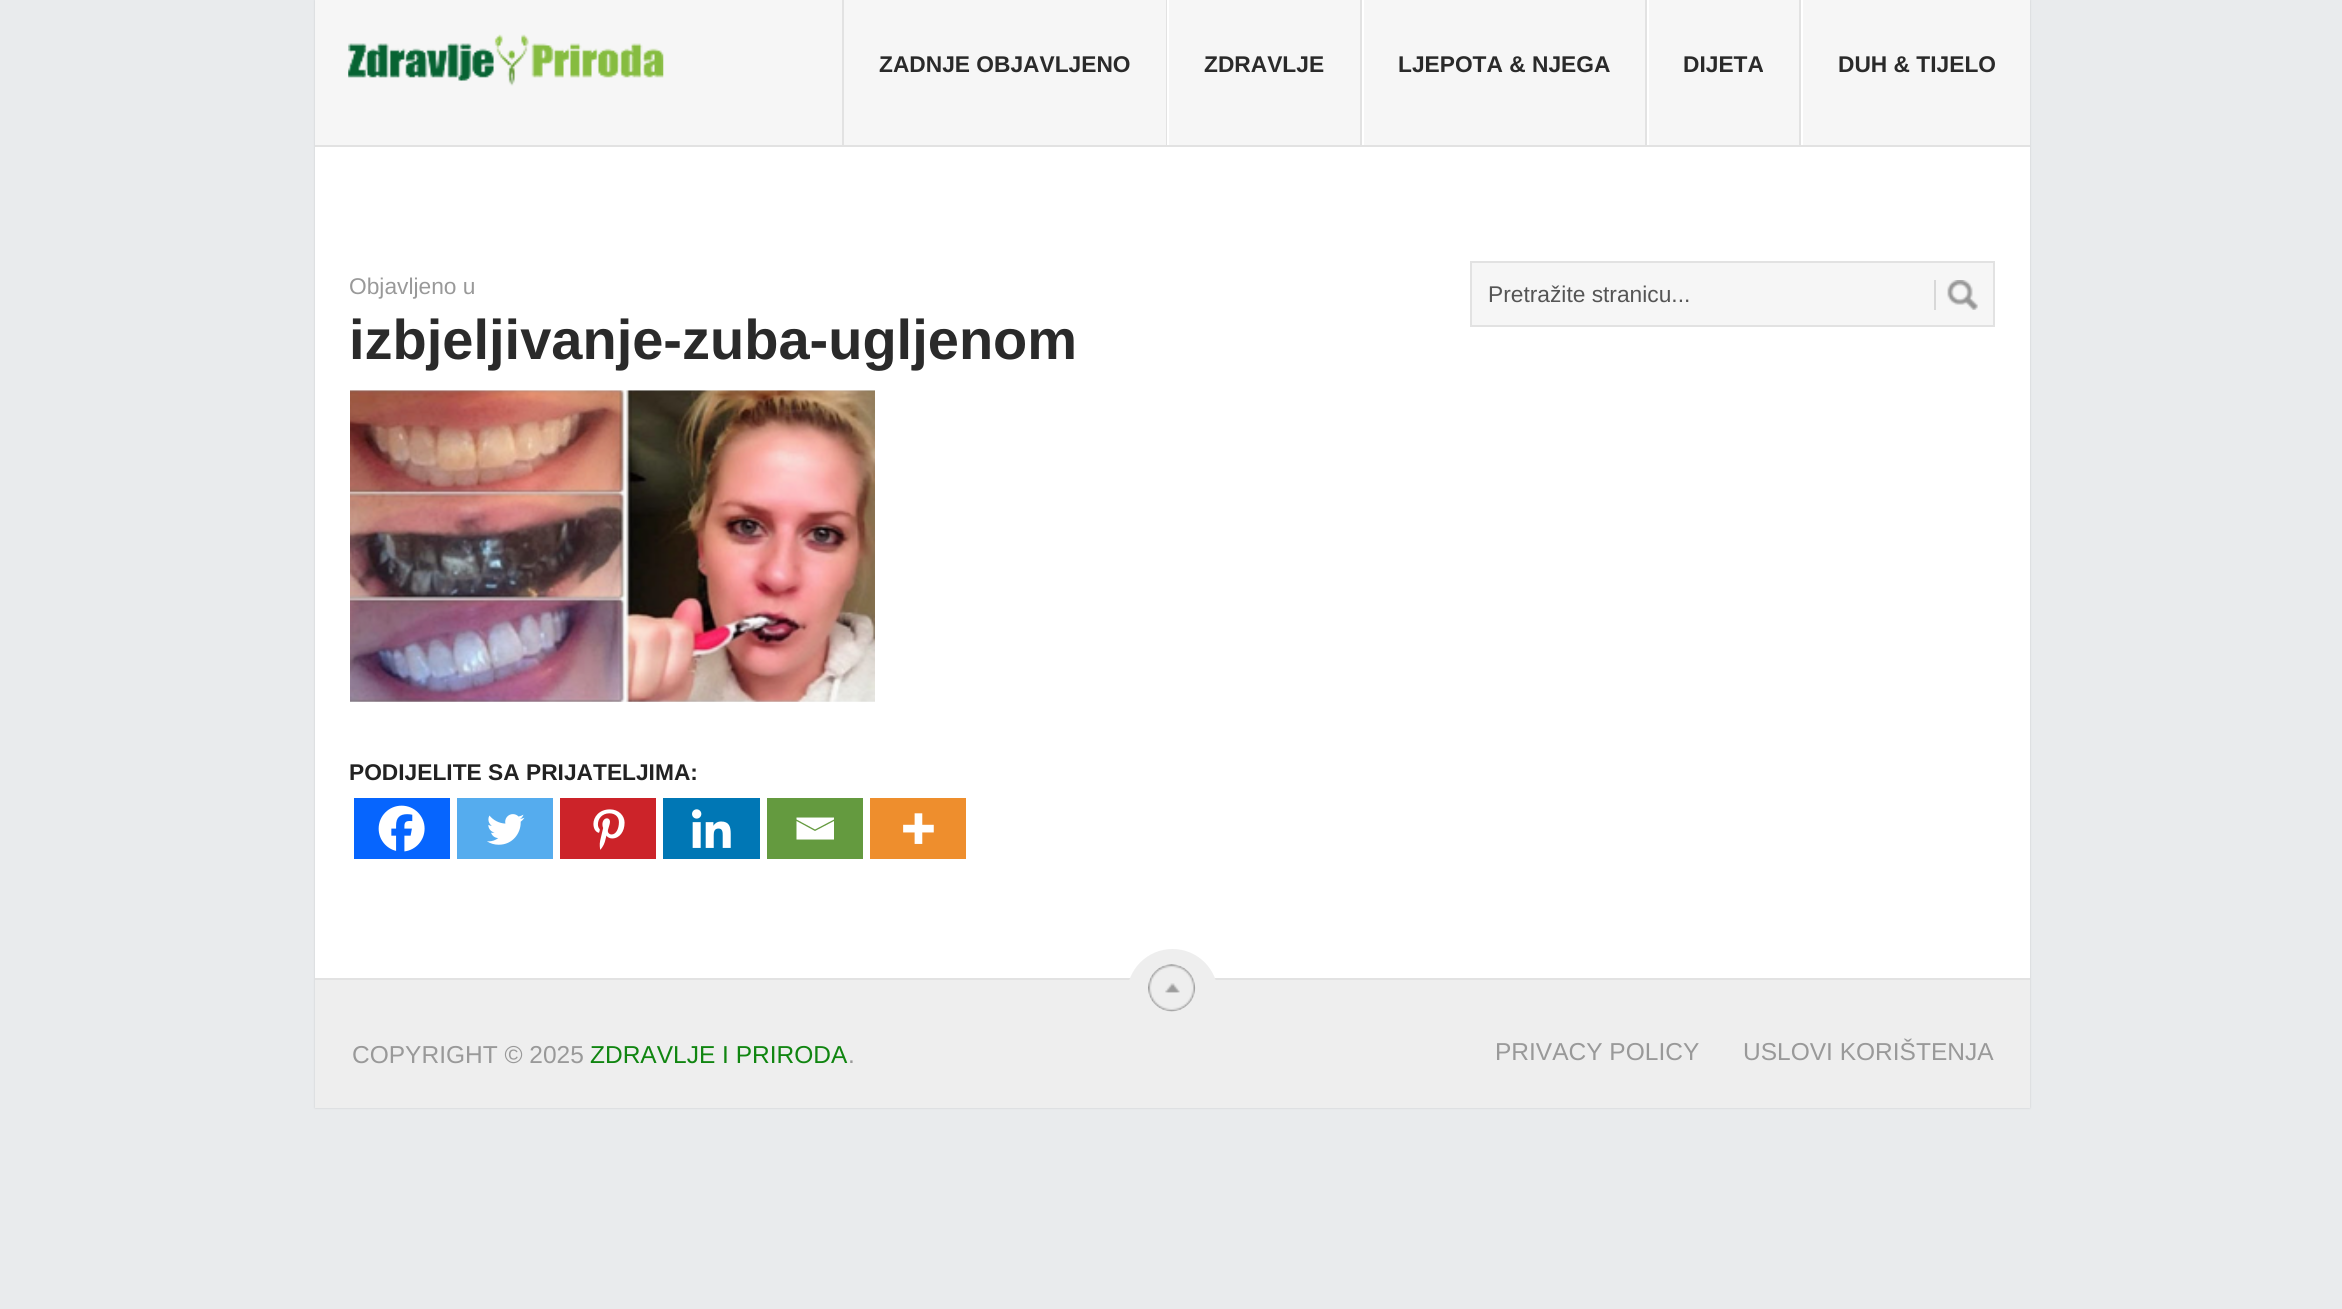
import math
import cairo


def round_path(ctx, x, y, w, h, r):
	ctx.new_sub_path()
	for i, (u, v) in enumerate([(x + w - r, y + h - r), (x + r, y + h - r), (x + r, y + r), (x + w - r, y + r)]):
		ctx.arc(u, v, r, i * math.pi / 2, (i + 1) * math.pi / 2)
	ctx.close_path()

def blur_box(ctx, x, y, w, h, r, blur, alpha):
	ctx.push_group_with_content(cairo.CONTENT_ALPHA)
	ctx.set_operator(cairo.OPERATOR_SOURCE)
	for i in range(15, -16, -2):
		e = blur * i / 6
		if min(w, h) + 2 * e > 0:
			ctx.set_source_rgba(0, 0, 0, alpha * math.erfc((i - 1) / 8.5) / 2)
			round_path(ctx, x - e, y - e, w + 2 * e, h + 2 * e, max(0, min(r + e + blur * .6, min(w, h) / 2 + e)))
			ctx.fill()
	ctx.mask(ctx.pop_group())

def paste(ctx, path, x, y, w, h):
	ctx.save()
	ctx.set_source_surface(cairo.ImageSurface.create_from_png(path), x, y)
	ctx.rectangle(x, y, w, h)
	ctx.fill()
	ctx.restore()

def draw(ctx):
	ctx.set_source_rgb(0.914, 0.918, 0.929)
	ctx.paint()
	ctx.set_source_rgb(0.196, 0.196, 0.196)
	blur_box(ctx, 315, 0, 1715, 1108, 0, 1, 0.17)
	ctx.set_source_rgb(1, 1, 1)
	ctx.rectangle(315, 147, 1715, 831)
	ctx.fill()
	ctx.set_source_rgb(0.961, 0.961, 0.961)
	ctx.rectangle(315, 0, 1715, 145)
	ctx.fill()
	paste(ctx, 'media/1.png', 348, 34, 316, 52)
	ctx.set_source_rgb(0.886, 0.886, 0.886)
	ctx.rectangle(1166, 0, 1, 147)
	ctx.fill()
	ctx.rectangle(842, 0, 2, 147)
	ctx.fill()
	ctx.select_font_face('Liberation Sans', cairo.FONT_SLANT_NORMAL, cairo.FONT_WEIGHT_BOLD)
	ctx.set_font_size(22.75)
	ctx.set_source_rgb(0.165, 0.165, 0.165)
	ctx.move_to(879, 72)
	ctx.show_text('ZADNJE OBJAVLJENO')
	ctx.set_source_rgb(0.886, 0.886, 0.886)
	ctx.rectangle(1360, 0, 2, 147)
	ctx.fill()
	ctx.set_source_rgb(1, 1, 1)
	ctx.rectangle(1167, 0, 2, 147)
	ctx.fill()
	ctx.set_source_rgb(0.165, 0.165, 0.165)
	ctx.move_to(1204, 72)
	ctx.show_text('ZDRAVLJE')
	ctx.set_source_rgb(0.886, 0.886, 0.886)
	ctx.rectangle(1645, 0, 2, 147)
	ctx.fill()
	ctx.set_source_rgb(1, 1, 1)
	ctx.rectangle(1362, 0, 2, 147)
	ctx.fill()
	ctx.set_source_rgb(0.165, 0.165, 0.165)
	ctx.move_to(1398, 72)
	ctx.show_text('LJEPOTA & NJEGA')
	ctx.set_source_rgb(0.886, 0.886, 0.886)
	ctx.rectangle(1799, 0, 2, 147)
	ctx.fill()
	ctx.set_source_rgb(1, 1, 1)
	ctx.rectangle(1647, 0, 2, 147)
	ctx.fill()
	ctx.set_source_rgb(0.165, 0.165, 0.165)
	ctx.move_to(1683, 72)
	ctx.show_text('DIJETA')
	ctx.set_source_rgb(1, 1, 1)
	ctx.rectangle(1801, 0, 2, 147)
	ctx.fill()
	ctx.set_source_rgb(0.165, 0.165, 0.165)
	ctx.move_to(1838, 72)
	ctx.show_text('DUH & TIJELO')
	ctx.set_source_rgb(0.886, 0.886, 0.886)
	ctx.rectangle(315, 145, 1715, 2)
	ctx.fill()
	ctx.select_font_face('Liberation Sans')
	ctx.set_source_rgb(0.6, 0.6, 0.6)
	ctx.move_to(349, 294)
	ctx.show_text('Objavljeno u')
	ctx.select_font_face('Liberation Sans', cairo.FONT_SLANT_NORMAL, cairo.FONT_WEIGHT_BOLD)
	ctx.set_font_size(56)
	ctx.set_source_rgb(0.165, 0.165, 0.165)
	ctx.move_to(349, 359)
	ctx.show_text('izbjeljivanje-zuba-ugljenom')
	paste(ctx, 'media/2.png', 350, 390, 525, 312)
	ctx.set_font_size(22.75)
	ctx.set_source_rgb(0.133, 0.133, 0.133)
	ctx.move_to(349, 780)
	ctx.show_text('PODIJELITE SA PRIJATELJIMA:')
	ctx.set_source_rgb(0.027, 0.396, 0.996)
	ctx.rectangle(354, 798, 96, 61)
	ctx.fill()
	paste(ctx, 'media/3.png', 378, 805, 47, 47)
	ctx.set_source_rgb(0.333, 0.675, 0.933)
	ctx.rectangle(457, 798, 96, 61)
	ctx.fill()
	paste(ctx, 'media/4.png', 487, 814, 38, 31)
	ctx.set_source_rgb(0.8, 0.137, 0.161)
	ctx.rectangle(560, 798, 96, 61)
	ctx.fill()
	paste(ctx, 'media/5.png', 593, 809, 32, 41)
	ctx.set_source_rgb(0, 0.467, 0.71)
	ctx.rectangle(663, 798, 97, 61)
	ctx.fill()
	paste(ctx, 'media/6.png', 692, 809, 39, 39)
	ctx.set_source_rgb(0.392, 0.604, 0.247)
	ctx.rectangle(767, 798, 96, 61)
	ctx.fill()
	ctx.set_source_rgb(1, 1, 1)
	ctx.new_path()
	ctx.move_to(794.5, 817.5)
	ctx.line_to(834, 817.5)
	ctx.line_to(834, 819.5)
	ctx.line_to(815, 829.5)
	ctx.line_to(796.5, 819.5)
	ctx.line_to(796.5, 817.5)
	ctx.move_to(796.5, 821)
	ctx.line_to(815, 831)
	ctx.line_to(834, 821)
	ctx.line_to(834, 839.5)
	ctx.line_to(796.5, 839.5)
	ctx.line_to(796.5, 821)
	ctx.fill()
	ctx.set_source_rgb(0.933, 0.557, 0.176)
	ctx.rectangle(870, 798, 96, 61)
	ctx.fill()
	paste(ctx, 'media/7.png', 903, 813, 31, 31)
	ctx.set_source_rgb(0.961, 0.961, 0.961)
	ctx.rectangle(1471, 262, 523, 64)
	ctx.fill_preserve()
	ctx.set_source_rgb(0.886, 0.886, 0.886)
	ctx.stroke()
	ctx.select_font_face('Liberation Sans')
	ctx.set_source_rgb(0.333, 0.333, 0.333)
	ctx.move_to(1488, 302)
	ctx.show_text('Pretražite stranicu...')
	paste(ctx, 'media/8.png', 1947, 280, 31, 30)
	ctx.set_source_rgb(0.847, 0.847, 0.847)
	ctx.rectangle(1934, 280, 2, 30)
	ctx.fill()
	ctx.set_source_rgb(0.933, 0.933, 0.933)
	ctx.rectangle(315, 980, 1715, 128)
	ctx.fill()
	ctx.set_source_rgb(0.886, 0.886, 0.886)
	ctx.rectangle(315, 978, 1715, 2)
	ctx.fill()
	ctx.set_source_rgb(0.933, 0.933, 0.933)
	ctx.arc(1172.5, 994.5, 45.5, 0, 2 * math.pi)
	ctx.fill()
	paste(ctx, 'media/9.png', 1148, 964, 48, 48)
	ctx.set_font_size(24.5)
	ctx.set_source_rgb(0.6, 0.6, 0.6)
	ctx.move_to(352, 1063)
	ctx.show_text('COPYRIGHT © 2025')
	ctx.set_source_rgb(0.063, 0.522, 0.063)
	ctx.move_to(590, 1063)
	ctx.show_text('ZDRAVLJE I PRIRODA')
	ctx.set_source_rgb(0.6, 0.6, 0.6)
	for x, y, s in [
		(848, 1063, '.'),
		(1495, 1060, 'PRIVACY POLICY'),
		(1743, 1060, 'USLOVI KORIŠTENJA'),
	]:
		ctx.move_to(x, y)
		ctx.show_text(s)


surface = cairo.ImageSurface(cairo.FORMAT_RGB24, 2342, 1309)
ctx = cairo.Context(surface)
options = cairo.FontOptions()
options.set_hint_metrics(cairo.HINT_METRICS_OFF)
options.set_hint_style(cairo.HINT_STYLE_NONE)
ctx.set_font_options(options)
ctx.set_miter_limit(4)
draw(ctx)
surface.write_to_png('image.png')
